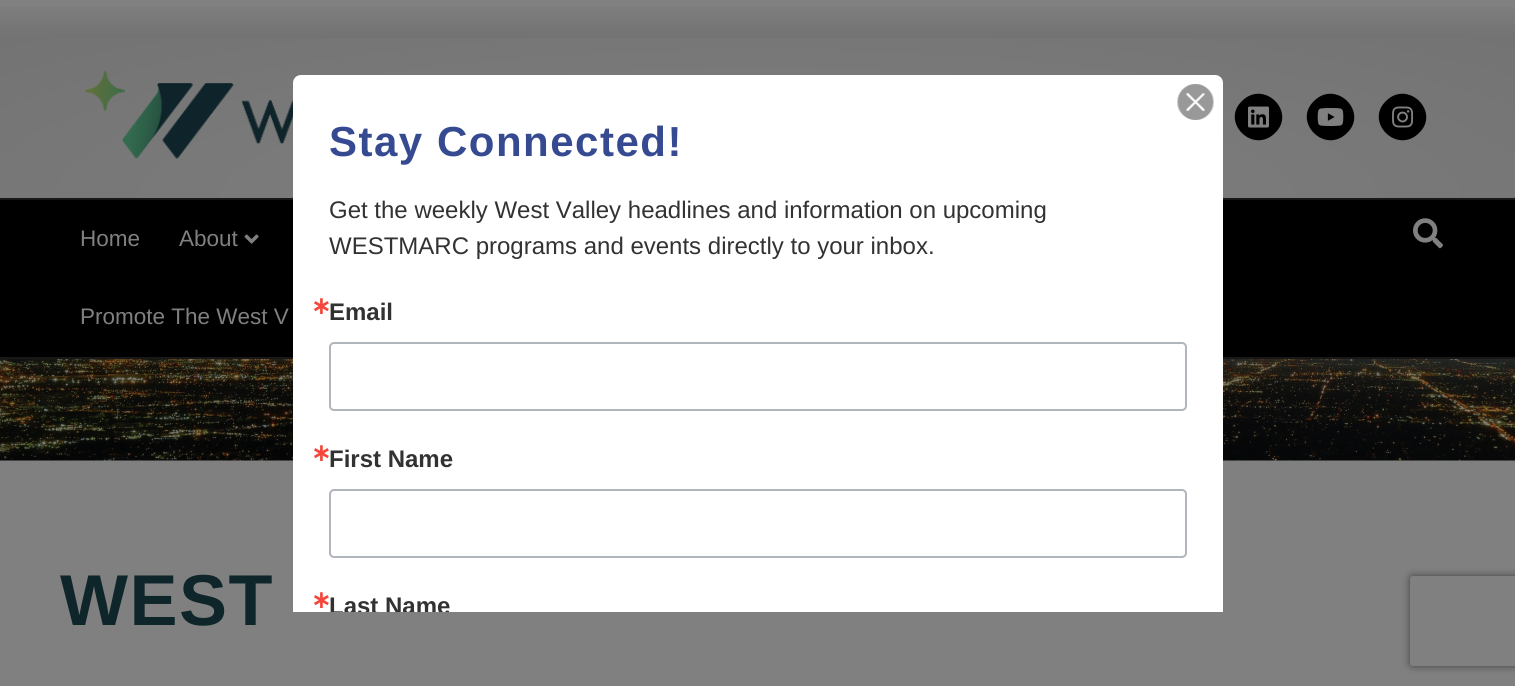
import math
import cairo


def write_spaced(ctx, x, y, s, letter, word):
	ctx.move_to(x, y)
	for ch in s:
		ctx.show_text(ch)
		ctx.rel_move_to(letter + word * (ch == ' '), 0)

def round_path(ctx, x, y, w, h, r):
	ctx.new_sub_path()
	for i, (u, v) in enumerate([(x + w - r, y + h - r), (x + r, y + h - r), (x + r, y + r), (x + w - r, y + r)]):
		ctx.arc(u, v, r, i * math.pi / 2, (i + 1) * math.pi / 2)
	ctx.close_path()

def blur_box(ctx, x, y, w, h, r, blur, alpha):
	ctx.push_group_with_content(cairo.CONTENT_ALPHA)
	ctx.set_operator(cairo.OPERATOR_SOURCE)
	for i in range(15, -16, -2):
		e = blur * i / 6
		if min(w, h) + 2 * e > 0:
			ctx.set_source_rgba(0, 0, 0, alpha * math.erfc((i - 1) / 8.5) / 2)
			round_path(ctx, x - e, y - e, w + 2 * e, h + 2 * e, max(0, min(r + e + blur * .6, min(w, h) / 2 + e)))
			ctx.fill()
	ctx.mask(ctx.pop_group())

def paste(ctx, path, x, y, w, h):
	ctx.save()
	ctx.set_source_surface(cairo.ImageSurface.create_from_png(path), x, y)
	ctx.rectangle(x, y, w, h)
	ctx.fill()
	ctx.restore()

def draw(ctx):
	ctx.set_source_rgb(0.502, 0.502, 0.502)
	ctx.paint()
	gradient = cairo.LinearGradient(758, 0, 758, 36)
	gradient.add_color_stop_rgba(0, 0.502, 0.502, 0.502, 1)
	gradient.add_color_stop_rgba(1, 0.451, 0.451, 0.451, 1)
	ctx.set_source(gradient)
	ctx.rectangle(0, 7, 1515, 29)
	ctx.fill()
	ctx.set_source_rgb(0.451, 0.451, 0.451)
	ctx.rectangle(0, 36, 1515, 2)
	ctx.fill()
	gradient = cairo.RadialGradient(0, 0, 0, 0, 0, 1)
	gradient.set_matrix(cairo.Matrix(1 / 1071, 0, 0, 1 / 227, -1 * 758 / 1071, -1 * 198 / 227))
	gradient.add_color_stop_rgba(0, 0.502, 0.502, 0.502, 1)
	gradient.add_color_stop_rgba(1, 0.451, 0.451, 0.451, 1)
	ctx.set_source(gradient)
	ctx.rectangle(0, 38, 1515, 160)
	ctx.fill()
	paste(ctx, 'media/1.png', 85, 70, 208, 89)
	ctx.set_source_rgb(0, 0, 0)
	ctx.new_path()
	ctx.move_to(1242, 101)
	ctx.curve_to(1264, 79, 1297, 112, 1275, 133)
	ctx.curve_to(1253, 155, 1220, 122, 1242, 101)
	ctx.close_path()
	ctx.fill()
	paste(ctx, 'media/2.png', 1248, 106, 21, 22)
	ctx.new_path()
	ctx.move_to(1314, 101)
	ctx.curve_to(1336, 79, 1369, 112, 1347, 133)
	ctx.curve_to(1325, 155, 1292, 122, 1314, 101)
	ctx.close_path()
	ctx.fill()
	paste(ctx, 'media/3.png', 1317, 108, 27, 18)
	ctx.new_path()
	ctx.move_to(1386, 101)
	ctx.curve_to(1408, 79, 1441, 112, 1419, 133)
	ctx.curve_to(1397, 155, 1364, 122, 1386, 101)
	ctx.close_path()
	ctx.fill()
	paste(ctx, 'media/4.png', 1392, 106, 22, 22)
	ctx.rectangle(0, 200, 1515, 157)
	ctx.fill()
	ctx.set_source_rgb(0.094, 0.094, 0.094)
	ctx.rectangle(0, 198, 1515, 2)
	ctx.rectangle(0, 357, 1515, 2)
	ctx.fill()
	ctx.select_font_face('Liberation Sans')
	ctx.set_font_size(22.5)
	ctx.set_source_rgb(0.502, 0.502, 0.502)
	ctx.move_to(80, 246)
	ctx.show_text('Home')
	ctx.move_to(179, 246)
	ctx.show_text('About')
	paste(ctx, 'media/5.png', 244, 234, 15, 10)
	ctx.move_to(80, 324)
	ctx.show_text('Promote The West V')
	paste(ctx, 'media/6.png', 1413, 218, 30, 31)
	paste(ctx, 'media/7.png', 0, 359, 1515, 102)
	ctx.select_font_face('Liberation Sans', cairo.FONT_SLANT_NORMAL, cairo.FONT_WEIGHT_BOLD)
	ctx.set_font_size(72)
	ctx.set_source_rgb(0.055, 0.145, 0.165)
	write_spaced(ctx, 60, 625, 'WEST', 1.5, 0)
	ctx.set_source_rgb(1, 1, 1)
	ctx.new_path()
	ctx.move_to(301, 75)
	ctx.line_to(1215, 75)
	ctx.curve_to(1219.5, 75, 1223, 78.5, 1223, 83)
	ctx.line_to(1223, 612)
	ctx.line_to(293, 612)
	ctx.line_to(293, 83)
	ctx.curve_to(293, 78.5, 296.5, 75, 301, 75)
	ctx.close_path()
	ctx.fill()
	paste(ctx, 'media/8.png', 1177, 84, 37, 36)
	ctx.set_font_size(42)
	ctx.set_source_rgb(0.212, 0.29, 0.573)
	write_spaced(ctx, 329, 156, 'Stay Connected!', 1.5, 0)
	ctx.select_font_face('Liberation Sans')
	ctx.set_font_size(24)
	ctx.set_source_rgb(0.196, 0.196, 0.196)
	ctx.move_to(329, 218)
	ctx.show_text('Get the weekly West Valley headlines and information on upcoming')
	ctx.move_to(329, 254)
	ctx.show_text('WESTMARC programs and events directly to your inbox.')
	ctx.select_font_face('DejaVu Sans', cairo.FONT_SLANT_NORMAL, cairo.FONT_WEIGHT_BOLD)
	ctx.set_source_rgb(0.961, 0.275, 0.231)
	ctx.move_to(311, 314)
	ctx.show_text('∗')
	ctx.select_font_face('Liberation Sans', cairo.FONT_SLANT_NORMAL, cairo.FONT_WEIGHT_BOLD)
	ctx.set_source_rgb(0.196, 0.196, 0.196)
	ctx.move_to(329, 320)
	ctx.show_text('Email')
	round_path(ctx, 330, 343, 856, 67, 4)
	ctx.set_source_rgb(0.69, 0.714, 0.733)
	ctx.stroke()
	ctx.select_font_face('DejaVu Sans', cairo.FONT_SLANT_NORMAL, cairo.FONT_WEIGHT_BOLD)
	ctx.set_source_rgb(0.961, 0.275, 0.231)
	ctx.move_to(311, 461)
	ctx.show_text('∗')
	ctx.select_font_face('Liberation Sans', cairo.FONT_SLANT_NORMAL, cairo.FONT_WEIGHT_BOLD)
	ctx.set_source_rgb(0.196, 0.196, 0.196)
	ctx.move_to(329, 467)
	ctx.show_text('First Name')
	round_path(ctx, 330, 490, 856, 67, 4)
	ctx.set_source_rgb(0.69, 0.714, 0.733)
	ctx.stroke()
	ctx.select_font_face('DejaVu Sans', cairo.FONT_SLANT_NORMAL, cairo.FONT_WEIGHT_BOLD)
	ctx.set_source_rgb(0.961, 0.275, 0.231)
	ctx.move_to(311, 608)
	ctx.show_text('∗')
	ctx.save()
	ctx.rectangle(293, 75, 930, 537)
	ctx.clip()
	ctx.select_font_face('Liberation Sans', cairo.FONT_SLANT_NORMAL, cairo.FONT_WEIGHT_BOLD)
	ctx.set_source_rgb(0.196, 0.196, 0.196)
	ctx.move_to(329, 614)
	ctx.show_text('Last Name')
	ctx.restore()
	ctx.save()
	ctx.set_fill_rule(cairo.FILL_RULE_EVEN_ODD)
	ctx.new_path()
	ctx.move_to(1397, 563)
	ctx.line_to(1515, 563)
	ctx.line_to(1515, 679)
	ctx.line_to(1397, 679)
	ctx.close_path()
	ctx.move_to(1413, 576)
	ctx.line_to(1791, 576)
	ctx.curve_to(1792.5, 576, 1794, 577.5, 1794, 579)
	ctx.line_to(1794, 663)
	ctx.curve_to(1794, 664.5, 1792.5, 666, 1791, 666)
	ctx.line_to(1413, 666)
	ctx.curve_to(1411.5, 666, 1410, 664.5, 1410, 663)
	ctx.line_to(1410, 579)
	ctx.curve_to(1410, 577.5, 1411.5, 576, 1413, 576)
	ctx.close_path()
	ctx.clip()
	ctx.set_source_rgb(0.251, 0.251, 0.251)
	blur_box(ctx, 1410, 576, 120, 90, 3, 4, 1)
	ctx.restore()


surface = cairo.ImageSurface(cairo.FORMAT_RGB24, 1515, 686)
ctx = cairo.Context(surface)
options = cairo.FontOptions()
options.set_hint_metrics(cairo.HINT_METRICS_OFF)
options.set_hint_style(cairo.HINT_STYLE_NONE)
ctx.set_font_options(options)
ctx.set_miter_limit(4)
draw(ctx)
surface.write_to_png('image.png')
